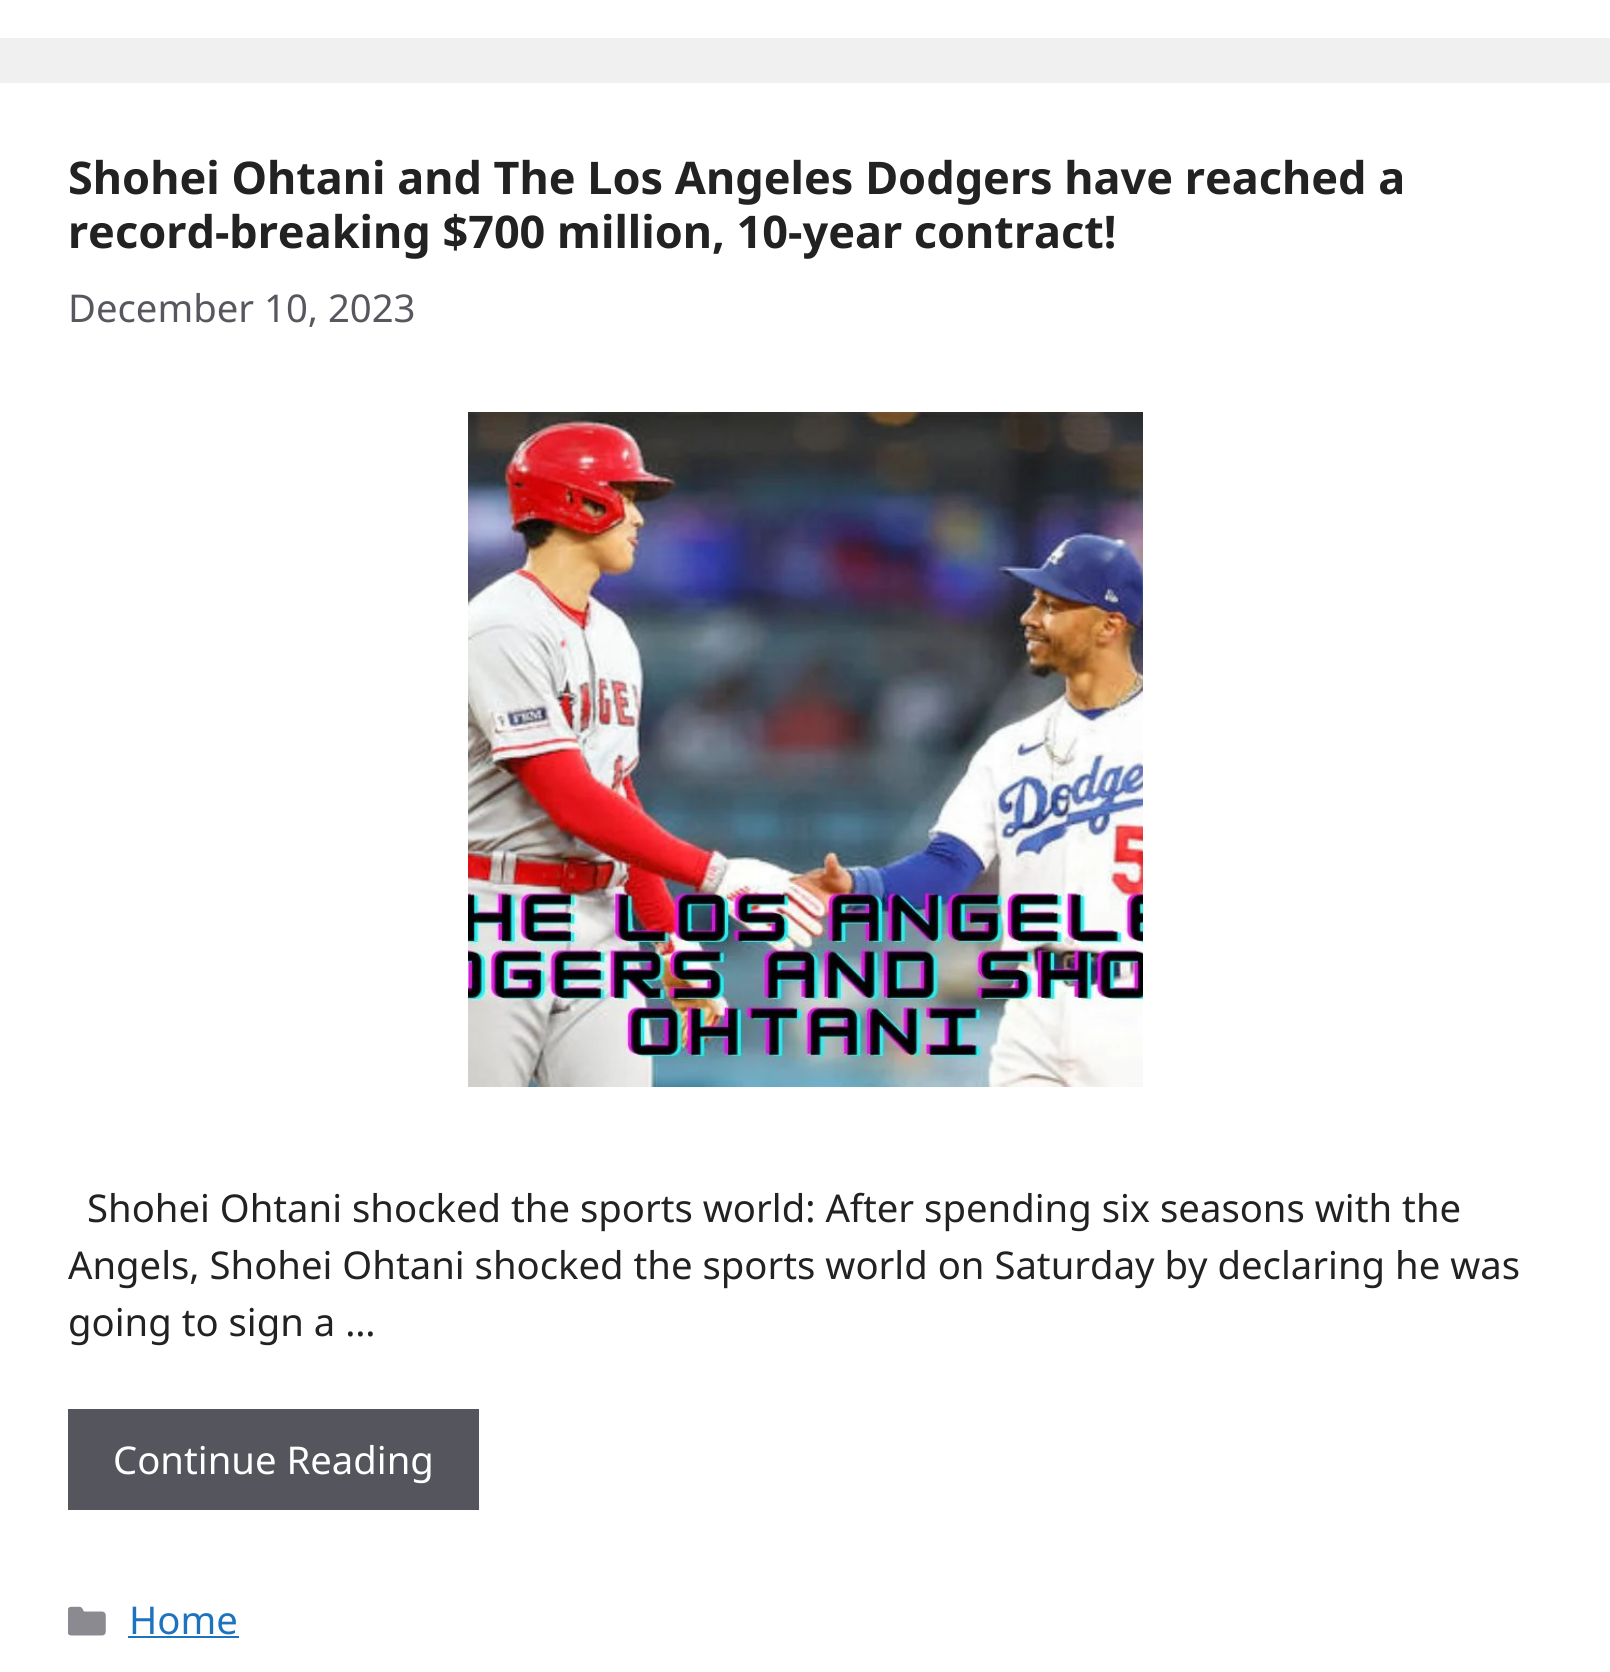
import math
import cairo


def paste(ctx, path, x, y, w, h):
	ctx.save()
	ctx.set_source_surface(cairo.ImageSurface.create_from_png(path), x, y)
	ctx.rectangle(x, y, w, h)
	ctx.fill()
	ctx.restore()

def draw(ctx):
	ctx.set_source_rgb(0.941, 0.941, 0.941)
	ctx.paint()
	ctx.set_source_rgb(1, 1, 1)
	ctx.rectangle(0, 0, 1610, 38)
	ctx.fill()
	ctx.rectangle(0, 83, 1610, 1589)
	ctx.fill()
	ctx.select_font_face('Noto Sans', cairo.FONT_SLANT_NORMAL, cairo.FONT_WEIGHT_BOLD)
	ctx.set_font_size(45)
	ctx.set_source_rgb(0.133, 0.133, 0.133)
	ctx.move_to(68, 194)
	ctx.show_text('Shohei Ohtani and The Los Angeles Dodgers have reached a')
	ctx.move_to(68, 248)
	ctx.show_text('record-breaking $700 million, 10-year contract!')
	ctx.select_font_face('Noto Sans')
	ctx.set_font_size(38.25)
	ctx.set_source_rgb(0.341, 0.341, 0.376)
	ctx.move_to(68, 322)
	ctx.show_text('December 10, 2023')
	paste(ctx, 'media/1.png', 468, 412, 675, 675)
	ctx.set_source_rgb(0.133, 0.133, 0.133)
	for x, y, s in [
		(87, 1222, 'Shohei Ohtani shocked the sports world: After spending six seasons with the'),
		(68, 1279, 'Angels, Shohei Ohtani shocked the sports world on Saturday by declaring he was'),
		(68, 1336, 'going to sign a …'),
	]:
		ctx.move_to(x, y)
		ctx.show_text(s)
	ctx.set_source_rgb(0.333, 0.333, 0.369)
	ctx.rectangle(68, 1409, 411, 101)
	ctx.fill()
	ctx.set_source_rgb(1, 1, 1)
	ctx.move_to(113, 1474)
	ctx.show_text('Continue Reading')
	paste(ctx, 'media/2.png', 68, 1606, 38, 30)
	ctx.set_source_rgb(0.118, 0.451, 0.745)
	ctx.move_to(129, 1634)
	ctx.show_text('Home')
	ctx.rectangle(128, 1636, 111, 2)
	ctx.fill()


surface = cairo.ImageSurface(cairo.FORMAT_RGB24, 1610, 1672)
ctx = cairo.Context(surface)
options = cairo.FontOptions()
options.set_hint_metrics(cairo.HINT_METRICS_OFF)
options.set_hint_style(cairo.HINT_STYLE_NONE)
ctx.set_font_options(options)
ctx.set_miter_limit(4)
draw(ctx)
surface.write_to_png('image.png')
